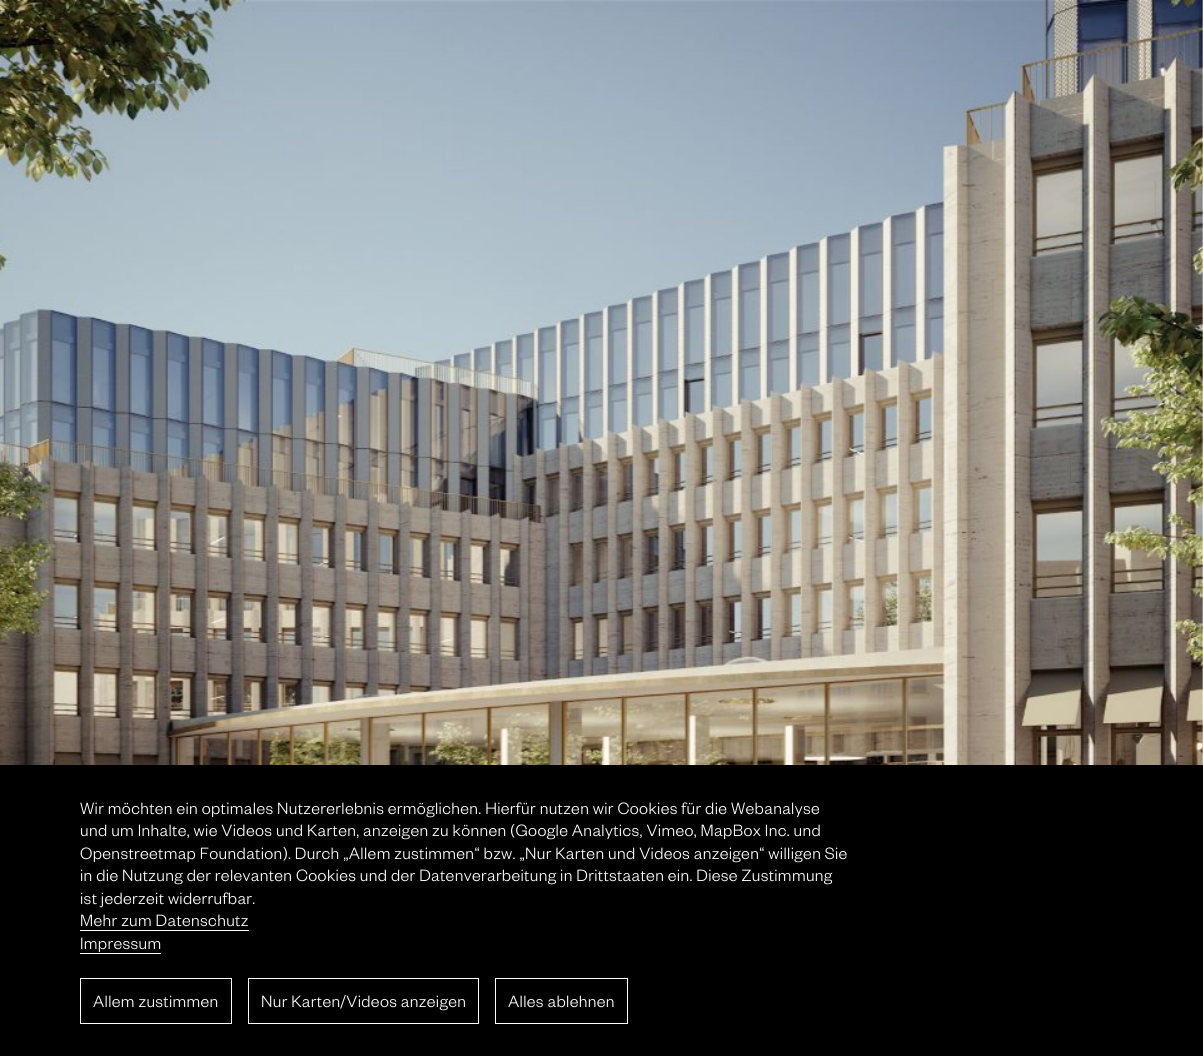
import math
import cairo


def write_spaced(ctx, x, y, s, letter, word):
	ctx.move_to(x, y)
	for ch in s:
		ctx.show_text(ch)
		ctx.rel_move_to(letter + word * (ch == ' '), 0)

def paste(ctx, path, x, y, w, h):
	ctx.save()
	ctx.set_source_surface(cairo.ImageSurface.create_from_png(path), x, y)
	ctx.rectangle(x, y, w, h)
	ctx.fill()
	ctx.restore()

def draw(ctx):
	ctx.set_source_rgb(1, 1, 1)
	ctx.paint()
	paste(ctx, 'media/1.png', 0, 0, 1203, 765)
	ctx.set_source_rgb(0, 0, 0)
	ctx.rectangle(0, 765, 1203, 291)
	ctx.fill()
	ctx.select_font_face('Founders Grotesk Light')
	ctx.set_font_size(18)
	ctx.set_source_rgb(1, 1, 1)
	for x, y, s in [
		(80, 814, 'Wir möchten ein optimales Nutzererlebnis ermöglichen. Hierfür nutzen wir Cookies für die Webanalyse'),
		(80, 836, 'und um Inhalte, wie Videos und Karten, anzeigen zu können (Google Analytics, Vimeo, MapBox Inc. und'),
		(80, 859, 'Openstreetmap Foundation). Durch „Allem zustimmen“ bzw. „Nur Karten und Videos anzeigen“ willigen Sie'),
		(80, 881, 'in die Nutzung der relevanten Cookies und der Datenverarbeitung in Drittstaaten ein. Diese Zustimmung'),
		(80, 904, 'ist jederzeit widerrufbar.'),
		(80, 926, 'Mehr zum Datenschutz'),
	]:
		write_spaced(ctx, x, y, s, 0.36, 0)
	ctx.rectangle(80, 930, 169, 1)
	ctx.fill()
	write_spaced(ctx, 80, 949, 'Impressum', 0.36, 0)
	ctx.rectangle(80, 953, 81, 1)
	ctx.fill()
	ctx.rectangle(80.5, 978.5, 151, 45)
	ctx.set_line_width(1)
	ctx.stroke()
	write_spaced(ctx, 93, 1007, 'Allem zustimmen', 0.36, 0)
	ctx.rectangle(248.5, 978.5, 230, 45)
	ctx.stroke()
	write_spaced(ctx, 261, 1007, 'Nur Karten/Videos anzeigen', 0.36, 0)
	ctx.rectangle(495.5, 978.5, 132, 45)
	ctx.stroke()
	write_spaced(ctx, 508, 1007, 'Alles ablehnen', 0.36, 0)


surface = cairo.ImageSurface(cairo.FORMAT_RGB24, 1203, 1056)
ctx = cairo.Context(surface)
options = cairo.FontOptions()
options.set_hint_metrics(cairo.HINT_METRICS_OFF)
options.set_hint_style(cairo.HINT_STYLE_NONE)
ctx.set_font_options(options)
ctx.set_miter_limit(4)
draw(ctx)
surface.write_to_png('image.png')
